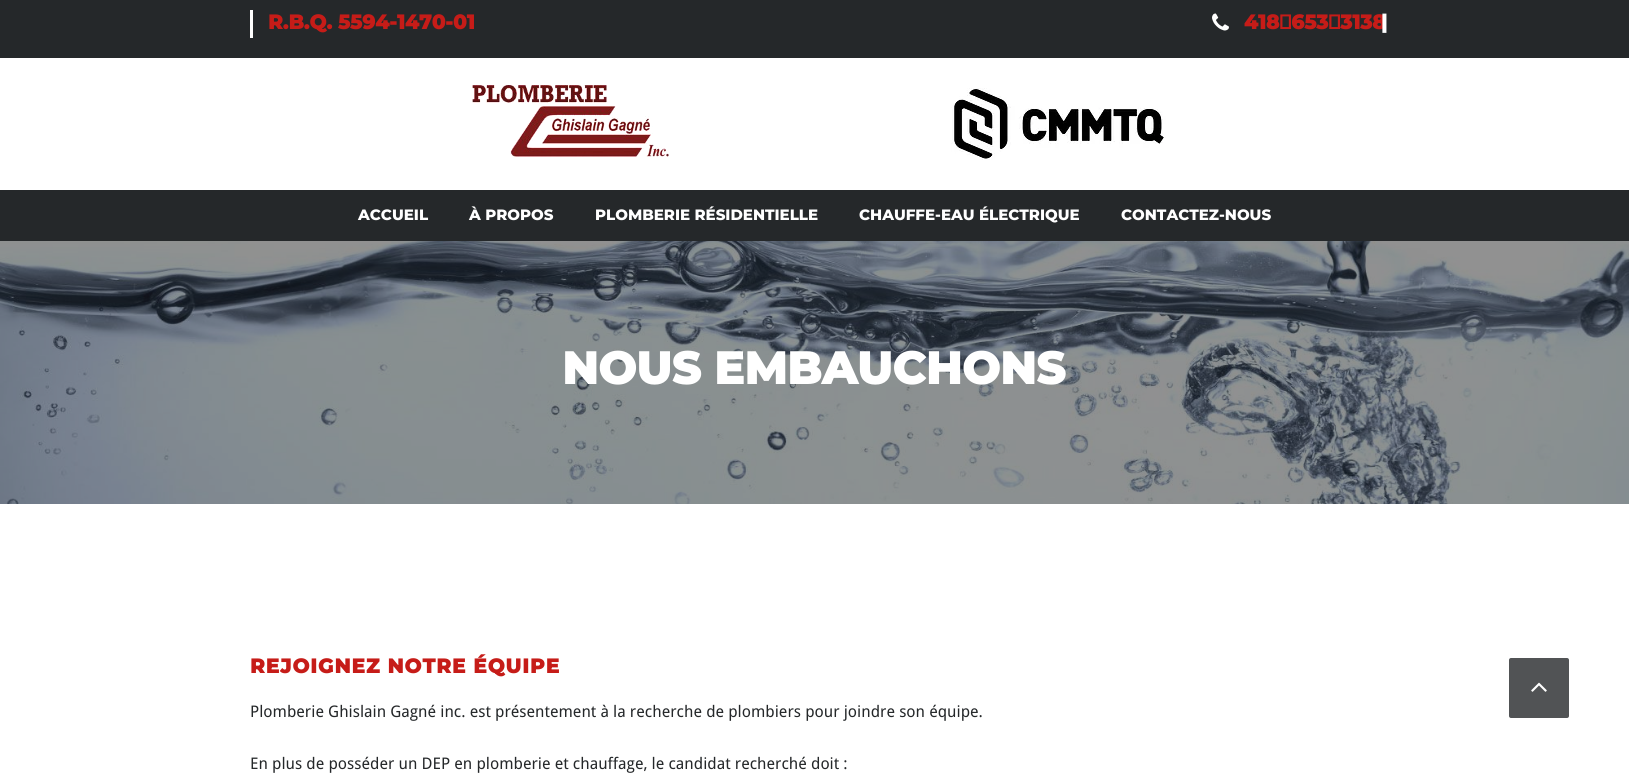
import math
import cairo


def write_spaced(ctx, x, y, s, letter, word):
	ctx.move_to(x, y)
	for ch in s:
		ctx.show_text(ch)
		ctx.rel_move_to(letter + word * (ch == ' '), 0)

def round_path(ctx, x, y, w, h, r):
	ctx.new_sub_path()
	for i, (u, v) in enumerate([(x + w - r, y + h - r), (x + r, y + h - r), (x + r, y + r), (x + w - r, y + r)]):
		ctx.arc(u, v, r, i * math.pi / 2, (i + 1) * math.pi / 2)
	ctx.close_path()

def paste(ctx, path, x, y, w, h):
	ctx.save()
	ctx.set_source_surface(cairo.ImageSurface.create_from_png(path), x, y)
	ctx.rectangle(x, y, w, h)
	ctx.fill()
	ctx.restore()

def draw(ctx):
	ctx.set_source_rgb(1, 1, 1)
	ctx.paint()
	ctx.set_source_rgb(0.145, 0.157, 0.165)
	ctx.rectangle(0, 0, 1629, 58)
	ctx.fill()
	ctx.set_source_rgb(1, 1, 1)
	ctx.rectangle(250, 10, 3, 28)
	ctx.fill()
	ctx.select_font_face('Montserrat', cairo.FONT_SLANT_NORMAL, cairo.FONT_WEIGHT_BOLD)
	ctx.set_font_size(20)
	ctx.set_source_rgb(0.776, 0.11, 0.094)
	ctx.move_to(268, 29)
	ctx.show_text('R.B.Q. 5594-1470-01')
	paste(ctx, 'media/1.png', 1212, 13, 17, 18)
	ctx.move_to(1244, 29)
	ctx.show_text('418‑653‑3138')
	ctx.set_source_rgb(1, 1, 1)
	ctx.move_to(1381, 29)
	ctx.show_text('|')
	paste(ctx, 'media/2.png', 472, 85, 197, 72)
	paste(ctx, 'media/3.png', 951, 88, 215, 72)
	ctx.set_source_rgb(0.145, 0.157, 0.165)
	ctx.rectangle(0, 190, 1629, 51)
	ctx.fill()
	ctx.select_font_face('Montserrat Thin')
	ctx.set_font_size(15)
	ctx.set_source_rgb(1, 1, 1)
	for x, y, s in [
		(358, 220, 'ACCUEIL'),
		(469, 220, 'À PROPOS'),
		(595, 220, 'PLOMBERIE RÉSIDENTIELLE'),
		(859, 220, 'CHAUFFE-EAU ÉLECTRIQUE'),
		(1121, 220, 'CONTACTEZ-NOUS'),
	]:
		ctx.move_to(x, y)
		ctx.show_text(s)
	ctx.set_source_rgb(0.137, 0.137, 0.137)
	ctx.rectangle(0, 241, 1629, 263)
	ctx.fill()
	paste(ctx, 'media/4.png', 0, 241, 1629, 263)
	ctx.select_font_face('Montserrat', cairo.FONT_SLANT_NORMAL, cairo.FONT_WEIGHT_BOLD)
	ctx.set_font_size(45)
	ctx.set_source_rgb(1, 1, 1)
	ctx.move_to(562, 384)
	ctx.show_text('NOUS EMBAUCHONS')
	ctx.set_font_size(20)
	ctx.set_source_rgb(0.776, 0.11, 0.094)
	write_spaced(ctx, 250, 673, 'REJOIGNEZ NOTRE ÉQUIPE', 1, 0)
	ctx.select_font_face('Droid Sans')
	ctx.set_font_size(16)
	ctx.set_source_rgb(0.145, 0.157, 0.165)
	ctx.move_to(250, 717)
	ctx.show_text('Plomberie Ghislain Gagné inc. est présentement à la recherche de plombiers pour joindre son équipe.')
	ctx.move_to(250, 769)
	ctx.show_text('En plus de posséder un DEP en plomberie et chauffage, le candidat recherché doit :')
	ctx.set_source_rgb(0.318, 0.325, 0.333)
	round_path(ctx, 1509, 658, 60, 60, 2)
	ctx.fill()
	paste(ctx, 'media/5.png', 1531, 682, 16, 10)


surface = cairo.ImageSurface(cairo.FORMAT_RGB24, 1629, 778)
ctx = cairo.Context(surface)
options = cairo.FontOptions()
options.set_hint_metrics(cairo.HINT_METRICS_OFF)
options.set_hint_style(cairo.HINT_STYLE_NONE)
ctx.set_font_options(options)
ctx.set_miter_limit(4)
draw(ctx)
surface.write_to_png('image.png')
